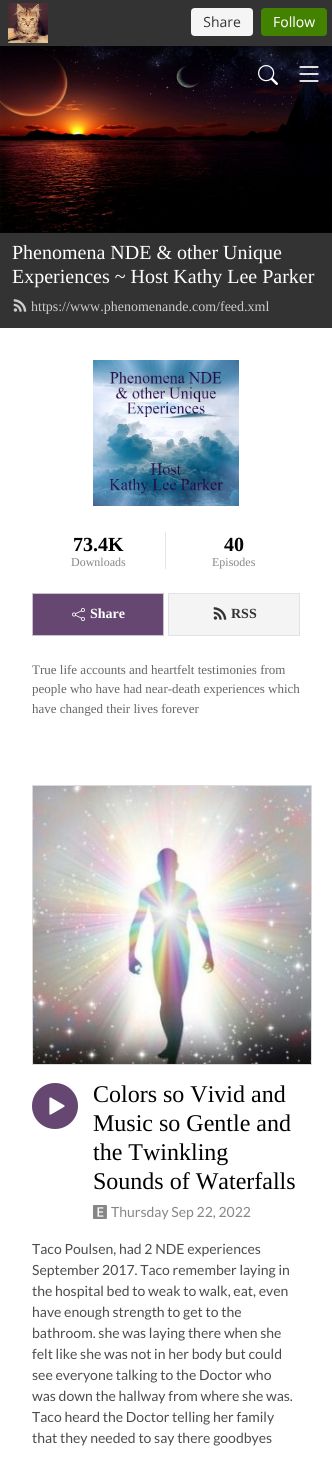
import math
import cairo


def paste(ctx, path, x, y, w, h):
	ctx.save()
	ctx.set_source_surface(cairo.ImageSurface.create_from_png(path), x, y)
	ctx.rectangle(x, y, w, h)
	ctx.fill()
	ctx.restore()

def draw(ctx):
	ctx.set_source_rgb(1, 1, 1)
	ctx.paint()
	ctx.set_source_rgb(0.2, 0.2, 0.2)
	ctx.rectangle(0, 0, 332, 46)
	ctx.fill()
	paste(ctx, 'media/1.png', 8, 3, 319, 40)
	paste(ctx, 'media/4.png', 0, 46, 332, 187)
	paste(ctx, 'media/2.png', 258, 65, 20, 20)
	paste(ctx, 'media/3.png', 299, 66, 20, 16)
	ctx.rectangle(0, 233, 332, 95)
	ctx.fill()
	ctx.select_font_face('Liberation Serif')
	ctx.set_font_size(20)
	ctx.set_source_rgb(1, 1, 1)
	ctx.move_to(12, 259)
	ctx.show_text('Phenomena NDE & other Unique')
	ctx.move_to(12, 283)
	ctx.show_text('Experiences ~ Host Kathy Lee Parker')
	paste(ctx, 'media/5.png', 13, 299, 14, 13)
	ctx.set_font_size(14)
	ctx.set_source_rgb(0.8, 0.8, 0.8)
	ctx.move_to(31, 311)
	ctx.show_text('https://www.phenomenande.com/feed.xml')
	paste(ctx, 'media/6.png', 93, 360, 146, 146)
	ctx.select_font_face('Liberation Serif', cairo.FONT_SLANT_NORMAL, cairo.FONT_WEIGHT_BOLD)
	ctx.set_font_size(20)
	ctx.set_source_rgb(0, 0, 0)
	ctx.move_to(73, 551)
	ctx.show_text('73.4K')
	ctx.select_font_face('Liberation Serif')
	ctx.set_font_size(12)
	ctx.set_source_rgb(0.525, 0.525, 0.525)
	ctx.move_to(71, 566)
	ctx.show_text('Downloads')
	ctx.set_source_rgb(0.902, 0.902, 0.902)
	ctx.rectangle(165, 532, 1, 37)
	ctx.fill()
	ctx.select_font_face('Liberation Serif', cairo.FONT_SLANT_NORMAL, cairo.FONT_WEIGHT_BOLD)
	ctx.set_font_size(20)
	ctx.set_source_rgb(0, 0, 0)
	ctx.move_to(224, 551)
	ctx.show_text('40')
	ctx.select_font_face('Liberation Serif')
	ctx.set_font_size(12)
	ctx.set_source_rgb(0.525, 0.525, 0.525)
	ctx.move_to(212, 566)
	ctx.show_text('Episodes')
	ctx.set_source_rgb(0.396, 0.278, 0.443)
	ctx.rectangle(32.5, 593.5, 131, 42)
	ctx.fill_preserve()
	ctx.set_source_rgb(0.788, 0.765, 0.796)
	ctx.set_line_width(1)
	ctx.stroke()
	paste(ctx, 'media/7.png', 72, 608, 13, 13)
	ctx.select_font_face('Liberation Serif', cairo.FONT_SLANT_NORMAL, cairo.FONT_WEIGHT_BOLD)
	ctx.set_font_size(14)
	ctx.set_source_rgb(1, 1, 1)
	ctx.move_to(90, 618)
	ctx.show_text('Share')
	ctx.set_source_rgb(0.957, 0.957, 0.957)
	ctx.rectangle(168.5, 593.5, 131, 42)
	ctx.fill_preserve()
	ctx.set_source_rgb(0.886, 0.886, 0.886)
	ctx.stroke()
	paste(ctx, 'media/8.png', 213, 607, 14, 13)
	ctx.set_source_rgb(0.2, 0.2, 0.2)
	ctx.move_to(231, 618)
	ctx.show_text('RSS')
	ctx.select_font_face('Liberation Serif')
	ctx.set_font_size(13)
	ctx.set_source_rgb(0.392, 0.4, 0.412)
	for x, y, s in [
		(32, 674, 'True life accounts and heartfelt testimonies from'),
		(32, 693, 'people who have had near-death experiences which'),
		(32, 713, 'have changed their lives forever'),
	]:
		ctx.move_to(x, y)
		ctx.show_text(s)
	ctx.rectangle(32.5, 785.5, 279, 279)
	ctx.set_source_rgb(0.855, 0.855, 0.855)
	ctx.stroke()
	paste(ctx, 'media/9.png', 33, 786, 278, 278)
	ctx.set_source_rgb(0.396, 0.278, 0.443)
	ctx.arc(55, 1106, 23, 0, 2 * math.pi)
	ctx.fill()
	paste(ctx, 'media/10.png', 49, 1097, 16, 18)
	ctx.set_font_size(24)
	ctx.set_source_rgb(0, 0, 0)
	for x, y, s in [
		(93, 1102, 'Colors so Vivid and'),
		(93, 1131, 'Music so Gentle and'),
		(93, 1160, 'the Twinkling'),
		(93, 1189, 'Sounds of Waterfalls'),
	]:
		ctx.move_to(x, y)
		ctx.show_text(s)
	paste(ctx, 'media/11.png', 93, 1205, 14, 14)
	ctx.select_font_face('Lato')
	ctx.set_font_size(14)
	ctx.set_source_rgb(0.525, 0.525, 0.525)
	ctx.move_to(111, 1217)
	ctx.show_text('Thursday Sep 22, 2022')
	ctx.set_source_rgb(0.298, 0.298, 0.298)
	for x, y, s in [
		(32, 1254, 'Taco Poulsen, had 2 NDE experiences'),
		(32, 1275, 'September 2017. Taco remember laying in'),
		(32, 1296, 'the hospital bed to weak to walk, eat, even'),
		(32, 1317, 'have enough strength to get to the'),
		(32, 1338, 'bathroom. she was laying there when she'),
		(32, 1359, 'felt like she was not in her body but could'),
		(32, 1380, 'see everyone talking to the Doctor who'),
		(32, 1401, 'was down the hallway from where she was.'),
		(32, 1422, 'Taco heard the Doctor telling her family'),
		(32, 1443, 'that they needed to say there goodbyes'),
	]:
		ctx.move_to(x, y)
		ctx.show_text(s)


surface = cairo.ImageSurface(cairo.FORMAT_RGB24, 332, 1460)
ctx = cairo.Context(surface)
options = cairo.FontOptions()
options.set_hint_metrics(cairo.HINT_METRICS_OFF)
options.set_hint_style(cairo.HINT_STYLE_NONE)
ctx.set_font_options(options)
ctx.set_miter_limit(4)
draw(ctx)
surface.write_to_png('image.png')
